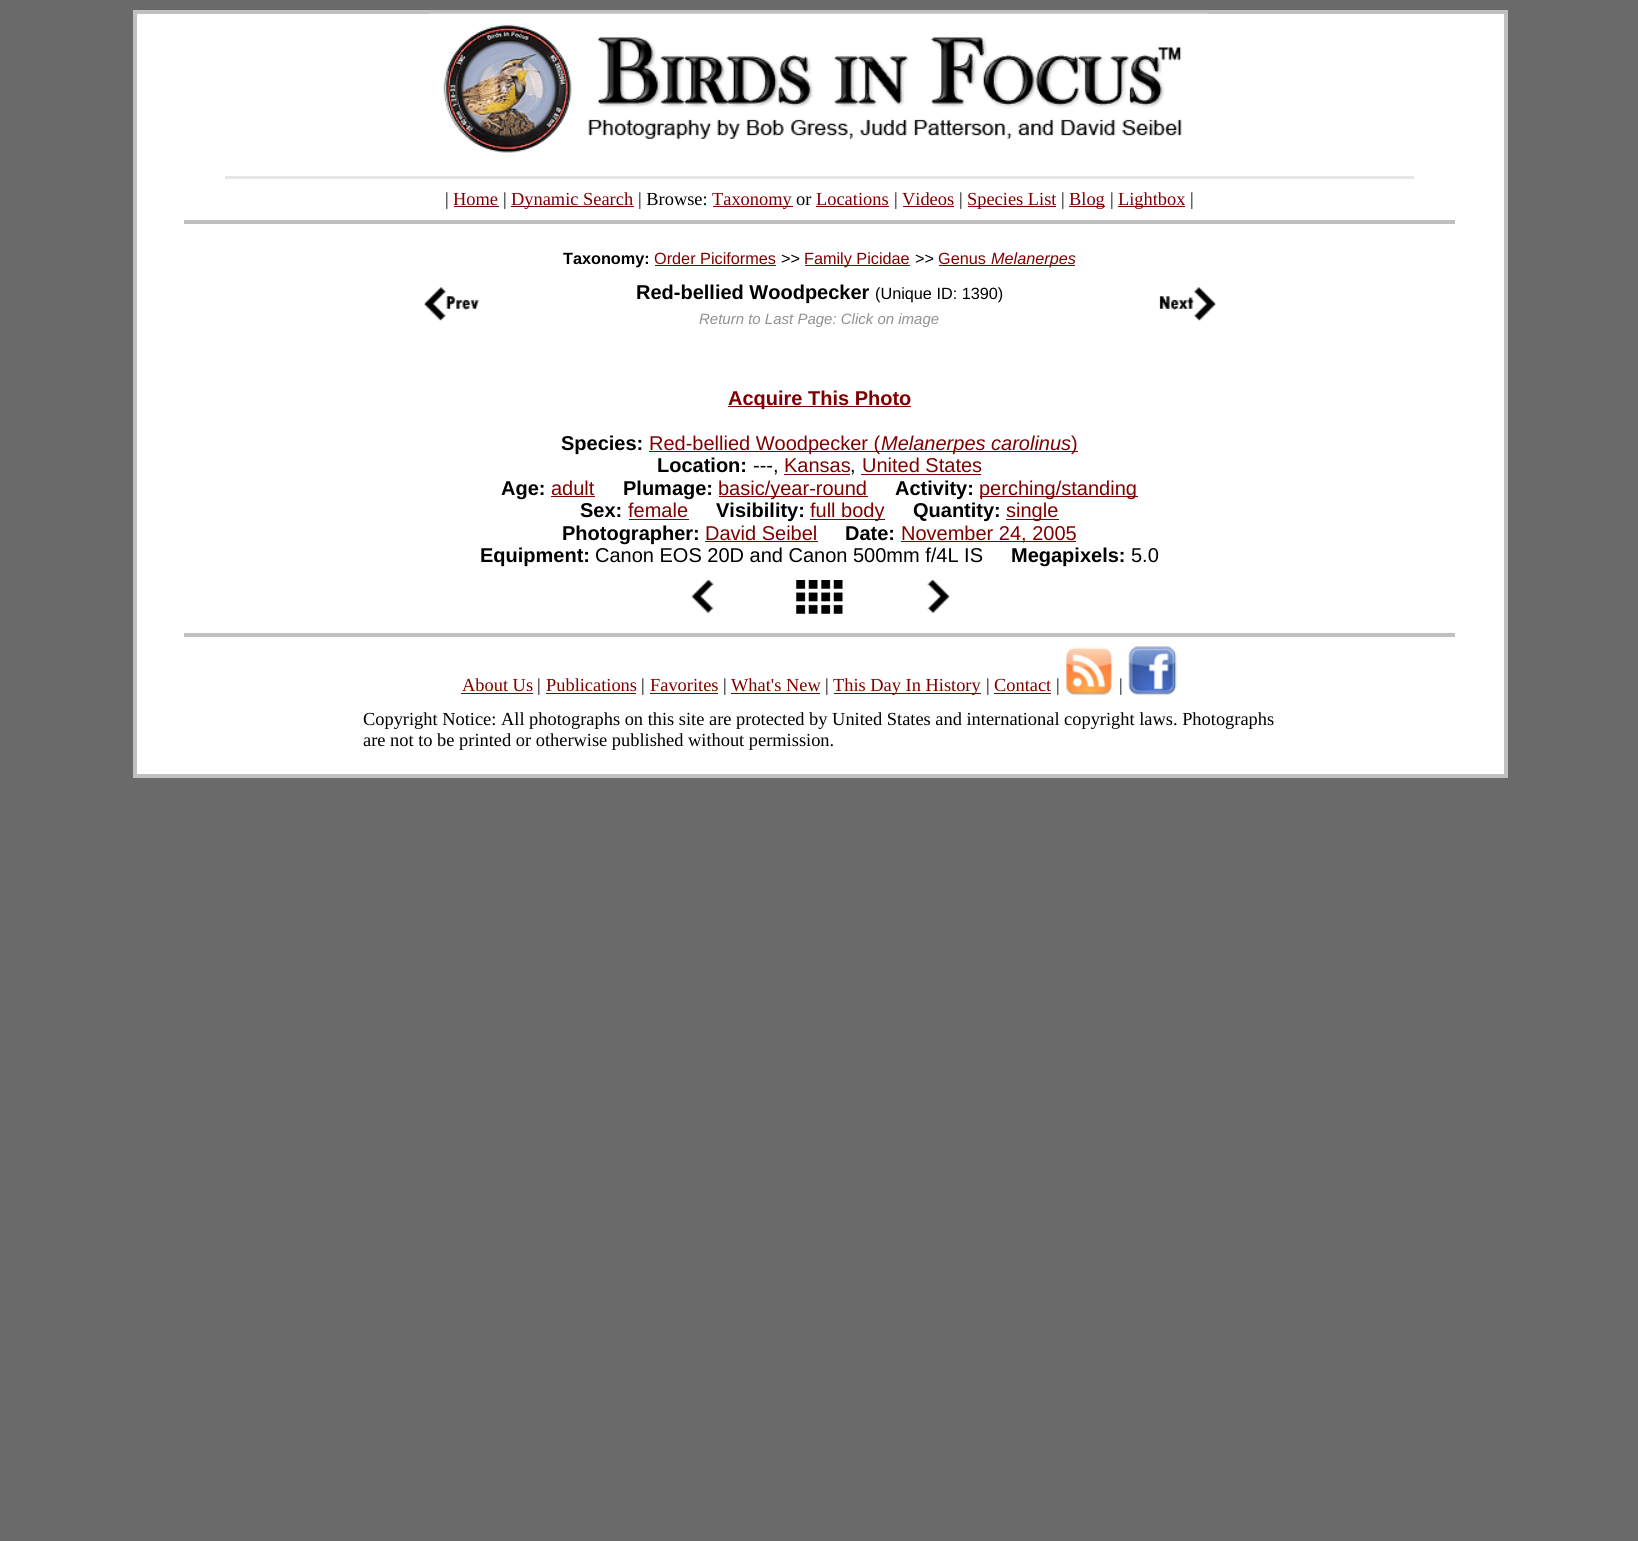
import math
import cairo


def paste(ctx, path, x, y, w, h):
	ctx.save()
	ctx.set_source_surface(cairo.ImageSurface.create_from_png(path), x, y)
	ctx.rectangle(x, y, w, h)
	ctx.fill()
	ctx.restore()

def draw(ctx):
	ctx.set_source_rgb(0.416, 0.416, 0.416)
	ctx.paint()
	ctx.set_source_rgb(1, 1, 1)
	ctx.rectangle(137, 14, 1367, 760)
	ctx.fill()
	ctx.set_source_rgb(0.753, 0.753, 0.753)
	ctx.rectangle(133, 10, 1375, 4)
	ctx.rectangle(1504, 10, 4, 768)
	ctx.rectangle(133, 774, 1375, 4)
	ctx.rectangle(133, 10, 4, 768)
	ctx.fill()
	paste(ctx, 'media/1.png', 430, 13, 779, 140)
	ctx.set_source_rgb(0.902, 0.902, 0.902)
	ctx.rectangle(225, 176, 1189, 3)
	ctx.fill()
	ctx.select_font_face('Liberation Serif')
	ctx.set_font_size(18.4)
	ctx.set_source_rgb(0, 0, 0)
	ctx.move_to(445, 205)
	ctx.show_text('|')
	ctx.set_source_rgb(0.502, 0, 0)
	ctx.move_to(453, 205)
	ctx.show_text('Home')
	ctx.rectangle(454, 206, 45, 1)
	ctx.fill()
	ctx.set_source_rgb(0, 0, 0)
	ctx.move_to(503, 205)
	ctx.show_text('|')
	ctx.set_source_rgb(0.502, 0, 0)
	ctx.rectangle(511, 206, 123, 1)
	ctx.fill()
	ctx.move_to(511, 205)
	ctx.show_text('Dynamic Search')
	ctx.set_source_rgb(0, 0, 0)
	ctx.move_to(638, 205)
	ctx.show_text('| Browse:')
	ctx.set_source_rgb(0.502, 0, 0)
	ctx.rectangle(713, 206, 80, 1)
	ctx.fill()
	ctx.move_to(712, 205)
	ctx.show_text('Taxonomy')
	ctx.set_source_rgb(0, 0, 0)
	ctx.move_to(796, 205)
	ctx.show_text('or')
	ctx.set_source_rgb(0.502, 0, 0)
	ctx.rectangle(816, 206, 73, 1)
	ctx.fill()
	ctx.move_to(816, 205)
	ctx.show_text('Locations')
	ctx.set_source_rgb(0, 0, 0)
	ctx.move_to(894, 205)
	ctx.show_text('|')
	ctx.set_source_rgb(0.502, 0, 0)
	ctx.move_to(902, 205)
	ctx.show_text('Videos')
	ctx.rectangle(903, 206, 51, 1)
	ctx.fill()
	ctx.set_source_rgb(0, 0, 0)
	ctx.move_to(959, 205)
	ctx.show_text('|')
	ctx.set_source_rgb(0.502, 0, 0)
	ctx.rectangle(968, 206, 88, 1)
	ctx.fill()
	ctx.move_to(967, 205)
	ctx.show_text('Species List')
	ctx.set_source_rgb(0, 0, 0)
	ctx.move_to(1061, 205)
	ctx.show_text('|')
	ctx.set_source_rgb(0.502, 0, 0)
	ctx.rectangle(1069, 206, 36, 1)
	ctx.fill()
	ctx.move_to(1069, 205)
	ctx.show_text('Blog')
	ctx.set_source_rgb(0, 0, 0)
	ctx.move_to(1110, 205)
	ctx.show_text('|')
	ctx.set_source_rgb(0.502, 0, 0)
	ctx.rectangle(1118, 206, 67, 1)
	ctx.fill()
	ctx.move_to(1118, 205)
	ctx.show_text('Lightbox')
	ctx.set_source_rgb(0, 0, 0)
	ctx.move_to(1190, 205)
	ctx.show_text('|')
	ctx.set_source_rgb(0.753, 0.753, 0.753)
	ctx.rectangle(184, 220, 1271, 4)
	ctx.fill()
	ctx.select_font_face('Liberation Sans', cairo.FONT_SLANT_NORMAL, cairo.FONT_WEIGHT_BOLD)
	ctx.set_font_size(16.25)
	ctx.set_source_rgb(0, 0, 0)
	ctx.move_to(563, 264)
	ctx.show_text('Taxonomy:')
	ctx.select_font_face('Liberation Sans')
	ctx.set_source_rgb(0.502, 0, 0)
	ctx.move_to(654, 264)
	ctx.show_text('Order Piciformes')
	ctx.rectangle(655, 265, 121, 1)
	ctx.fill()
	ctx.set_source_rgb(0, 0, 0)
	ctx.move_to(781, 264)
	ctx.show_text('>>')
	ctx.set_source_rgb(0.502, 0, 0)
	ctx.rectangle(805, 265, 105, 1)
	ctx.fill()
	ctx.move_to(804, 264)
	ctx.show_text('Family Picidae')
	ctx.set_source_rgb(0, 0, 0)
	ctx.move_to(915, 264)
	ctx.show_text('>>')
	ctx.set_source_rgb(0.502, 0, 0)
	ctx.move_to(938, 264)
	ctx.show_text('Genus')
	ctx.rectangle(939, 265, 136, 1)
	ctx.fill()
	ctx.select_font_face('Liberation Sans', cairo.FONT_SLANT_ITALIC)
	ctx.move_to(991, 264)
	ctx.show_text('Melanerpes')
	paste(ctx, 'media/2.png', 423, 287, 56, 35)
	ctx.select_font_face('Liberation Sans', cairo.FONT_SLANT_NORMAL, cairo.FONT_WEIGHT_BOLD)
	ctx.set_font_size(20)
	ctx.set_source_rgb(0, 0, 0)
	ctx.move_to(636, 299)
	ctx.show_text('Red-bellied Woodpecker')
	ctx.select_font_face('Liberation Sans')
	ctx.set_font_size(16.25)
	ctx.move_to(875, 299)
	ctx.show_text('(Unique ID: 1390)')
	ctx.select_font_face('Liberation Sans', cairo.FONT_SLANT_ITALIC)
	ctx.set_font_size(15)
	ctx.set_source_rgb(0.569, 0.569, 0.569)
	ctx.move_to(699, 324)
	ctx.show_text('Return to Last Page: Click on image')
	paste(ctx, 'media/3.png', 1159, 287, 58, 35)
	ctx.set_source_rgb(0.502, 0, 0)
	ctx.rectangle(728, 406, 183, 1)
	ctx.fill()
	ctx.select_font_face('Liberation Sans', cairo.FONT_SLANT_NORMAL, cairo.FONT_WEIGHT_BOLD)
	ctx.set_font_size(20)
	ctx.move_to(728, 405)
	ctx.show_text('Acquire This Photo')
	ctx.set_source_rgb(0, 0, 0)
	ctx.move_to(561, 450)
	ctx.show_text('Species:')
	ctx.set_source_rgb(0.502, 0, 0)
	ctx.rectangle(649, 451, 231, 1)
	ctx.fill()
	ctx.select_font_face('Liberation Sans')
	ctx.move_to(649, 450)
	ctx.show_text('Red-bellied Woodpecker (')
	ctx.rectangle(880, 451, 198, 1)
	ctx.fill()
	ctx.select_font_face('Liberation Sans', cairo.FONT_SLANT_ITALIC)
	ctx.move_to(881, 450)
	ctx.show_text('Melanerpes carolinus')
	ctx.select_font_face('Liberation Sans')
	ctx.move_to(1071, 450)
	ctx.show_text(')')
	ctx.select_font_face('Liberation Sans', cairo.FONT_SLANT_NORMAL, cairo.FONT_WEIGHT_BOLD)
	ctx.set_source_rgb(0, 0, 0)
	ctx.move_to(657, 472)
	ctx.show_text('Location:')
	ctx.select_font_face('Liberation Sans')
	ctx.move_to(753, 472)
	ctx.show_text('---,')
	ctx.set_source_rgb(0.502, 0, 0)
	ctx.move_to(784, 472)
	ctx.show_text('Kansas')
	ctx.rectangle(784, 474, 66, 1)
	ctx.fill()
	ctx.set_source_rgb(0, 0, 0)
	ctx.move_to(850, 472)
	ctx.show_text(',')
	ctx.set_source_rgb(0.502, 0, 0)
	ctx.move_to(862, 472)
	ctx.show_text('United States')
	ctx.rectangle(861, 474, 120, 1)
	ctx.fill()
	ctx.select_font_face('Liberation Sans', cairo.FONT_SLANT_NORMAL, cairo.FONT_WEIGHT_BOLD)
	ctx.set_source_rgb(0, 0, 0)
	ctx.move_to(501, 495)
	ctx.show_text('Age:')
	ctx.select_font_face('Liberation Sans')
	ctx.set_source_rgb(0.502, 0, 0)
	ctx.move_to(551, 495)
	ctx.show_text('adult')
	ctx.rectangle(551, 496, 44, 1)
	ctx.fill()
	ctx.select_font_face('Liberation Sans', cairo.FONT_SLANT_NORMAL, cairo.FONT_WEIGHT_BOLD)
	ctx.set_source_rgb(0, 0, 0)
	ctx.move_to(623, 495)
	ctx.show_text('Plumage:')
	ctx.set_source_rgb(0.502, 0, 0)
	ctx.rectangle(719, 496, 149, 1)
	ctx.fill()
	ctx.select_font_face('Liberation Sans')
	ctx.move_to(718, 495)
	ctx.show_text('basic/year-round')
	ctx.select_font_face('Liberation Sans', cairo.FONT_SLANT_NORMAL, cairo.FONT_WEIGHT_BOLD)
	ctx.set_source_rgb(0, 0, 0)
	ctx.move_to(895, 495)
	ctx.show_text('Activity:')
	ctx.set_source_rgb(0.502, 0, 0)
	ctx.rectangle(980, 496, 158, 1)
	ctx.fill()
	ctx.select_font_face('Liberation Sans')
	ctx.move_to(979, 495)
	ctx.show_text('perching/standing')
	ctx.select_font_face('Liberation Sans', cairo.FONT_SLANT_NORMAL, cairo.FONT_WEIGHT_BOLD)
	ctx.set_source_rgb(0, 0, 0)
	ctx.move_to(580, 517)
	ctx.show_text('Sex:')
	ctx.select_font_face('Liberation Sans')
	ctx.set_source_rgb(0.502, 0, 0)
	ctx.move_to(628, 517)
	ctx.show_text('female')
	ctx.rectangle(629, 519, 60, 1)
	ctx.fill()
	ctx.select_font_face('Liberation Sans', cairo.FONT_SLANT_NORMAL, cairo.FONT_WEIGHT_BOLD)
	ctx.set_source_rgb(0, 0, 0)
	ctx.move_to(716, 517)
	ctx.show_text('Visibility:')
	ctx.set_source_rgb(0.502, 0, 0)
	ctx.rectangle(810, 519, 75, 1)
	ctx.fill()
	ctx.select_font_face('Liberation Sans')
	ctx.move_to(810, 517)
	ctx.show_text('full body')
	ctx.select_font_face('Liberation Sans', cairo.FONT_SLANT_NORMAL, cairo.FONT_WEIGHT_BOLD)
	ctx.set_source_rgb(0, 0, 0)
	ctx.move_to(913, 517)
	ctx.show_text('Quantity:')
	ctx.set_source_rgb(0.502, 0, 0)
	ctx.rectangle(1006, 519, 53, 1)
	ctx.fill()
	ctx.select_font_face('Liberation Sans')
	ctx.move_to(1006, 517)
	ctx.show_text('single')
	ctx.select_font_face('Liberation Sans', cairo.FONT_SLANT_NORMAL, cairo.FONT_WEIGHT_BOLD)
	ctx.set_source_rgb(0, 0, 0)
	ctx.move_to(562, 540)
	ctx.show_text('Photographer:')
	ctx.select_font_face('Liberation Sans')
	ctx.set_source_rgb(0.502, 0, 0)
	ctx.move_to(705, 540)
	ctx.show_text('David Seibel')
	ctx.rectangle(705, 541, 113, 1)
	ctx.fill()
	ctx.select_font_face('Liberation Sans', cairo.FONT_SLANT_NORMAL, cairo.FONT_WEIGHT_BOLD)
	ctx.set_source_rgb(0, 0, 0)
	ctx.move_to(845, 540)
	ctx.show_text('Date:')
	ctx.set_source_rgb(0.502, 0, 0)
	ctx.rectangle(901, 541, 175, 1)
	ctx.fill()
	ctx.select_font_face('Liberation Sans')
	ctx.move_to(901, 540)
	ctx.show_text('November 24, 2005')
	ctx.select_font_face('Liberation Sans', cairo.FONT_SLANT_NORMAL, cairo.FONT_WEIGHT_BOLD)
	ctx.set_source_rgb(0, 0, 0)
	ctx.move_to(480, 562)
	ctx.show_text('Equipment:')
	ctx.select_font_face('Liberation Sans')
	ctx.move_to(595, 562)
	ctx.show_text('Canon EOS 20D and Canon 500mm f/4L IS')
	ctx.select_font_face('Liberation Sans', cairo.FONT_SLANT_NORMAL, cairo.FONT_WEIGHT_BOLD)
	ctx.move_to(1011, 562)
	ctx.show_text('Megapixels:')
	ctx.select_font_face('Liberation Sans')
	ctx.move_to(1131, 562)
	ctx.show_text('5.0')
	paste(ctx, 'media/4.png', 691, 580, 23, 34)
	paste(ctx, 'media/5.png', 796, 580, 47, 34)
	paste(ctx, 'media/6.png', 927, 580, 23, 34)
	ctx.set_source_rgb(0.753, 0.753, 0.753)
	ctx.rectangle(184, 633, 1271, 4)
	ctx.fill()
	ctx.select_font_face('Liberation Serif')
	ctx.set_font_size(18.4)
	ctx.set_source_rgb(0.502, 0, 0)
	ctx.move_to(462, 691)
	ctx.show_text('About Us')
	ctx.rectangle(461, 693, 72, 1)
	ctx.fill()
	ctx.set_source_rgb(0, 0, 0)
	ctx.move_to(537, 691)
	ctx.show_text('|')
	ctx.set_source_rgb(0.502, 0, 0)
	ctx.move_to(546, 691)
	ctx.show_text('Publications')
	ctx.rectangle(546, 693, 90, 1)
	ctx.fill()
	ctx.set_source_rgb(0, 0, 0)
	ctx.move_to(641, 691)
	ctx.show_text('|')
	ctx.set_source_rgb(0.502, 0, 0)
	ctx.move_to(650, 691)
	ctx.show_text('Favorites')
	ctx.rectangle(650, 693, 68, 1)
	ctx.fill()
	ctx.set_source_rgb(0, 0, 0)
	ctx.move_to(723, 691)
	ctx.show_text('|')
	ctx.set_source_rgb(0.502, 0, 0)
	ctx.move_to(731, 691)
	ctx.show_text('What\'s New')
	ctx.rectangle(731, 693, 89, 1)
	ctx.fill()
	ctx.set_source_rgb(0, 0, 0)
	ctx.move_to(825, 691)
	ctx.show_text('|')
	ctx.set_source_rgb(0.502, 0, 0)
	ctx.rectangle(834, 693, 147, 1)
	ctx.fill()
	ctx.move_to(833, 691)
	ctx.show_text('This Day In History')
	ctx.set_source_rgb(0, 0, 0)
	ctx.move_to(986, 691)
	ctx.show_text('|')
	ctx.set_source_rgb(0.502, 0, 0)
	ctx.move_to(994, 691)
	ctx.show_text('Contact')
	ctx.rectangle(994, 693, 57, 1)
	ctx.fill()
	ctx.set_source_rgb(0, 0, 0)
	ctx.move_to(1056, 691)
	ctx.show_text('|')
	paste(ctx, 'media/7.png', 1065, 647, 48, 49)
	ctx.move_to(1119, 691)
	ctx.show_text('|')
	paste(ctx, 'media/8.png', 1128, 646, 49, 50)
	ctx.move_to(363, 725)
	ctx.show_text('Copyright Notice: All photographs on this site are protected by United States and international copyright laws. Photographs')
	ctx.move_to(363, 746)
	ctx.show_text('are not to be printed or otherwise published without permission.')


surface = cairo.ImageSurface(cairo.FORMAT_RGB24, 1638, 1541)
ctx = cairo.Context(surface)
options = cairo.FontOptions()
options.set_hint_metrics(cairo.HINT_METRICS_OFF)
options.set_hint_style(cairo.HINT_STYLE_NONE)
ctx.set_font_options(options)
ctx.set_miter_limit(4)
draw(ctx)
surface.write_to_png('image.png')
